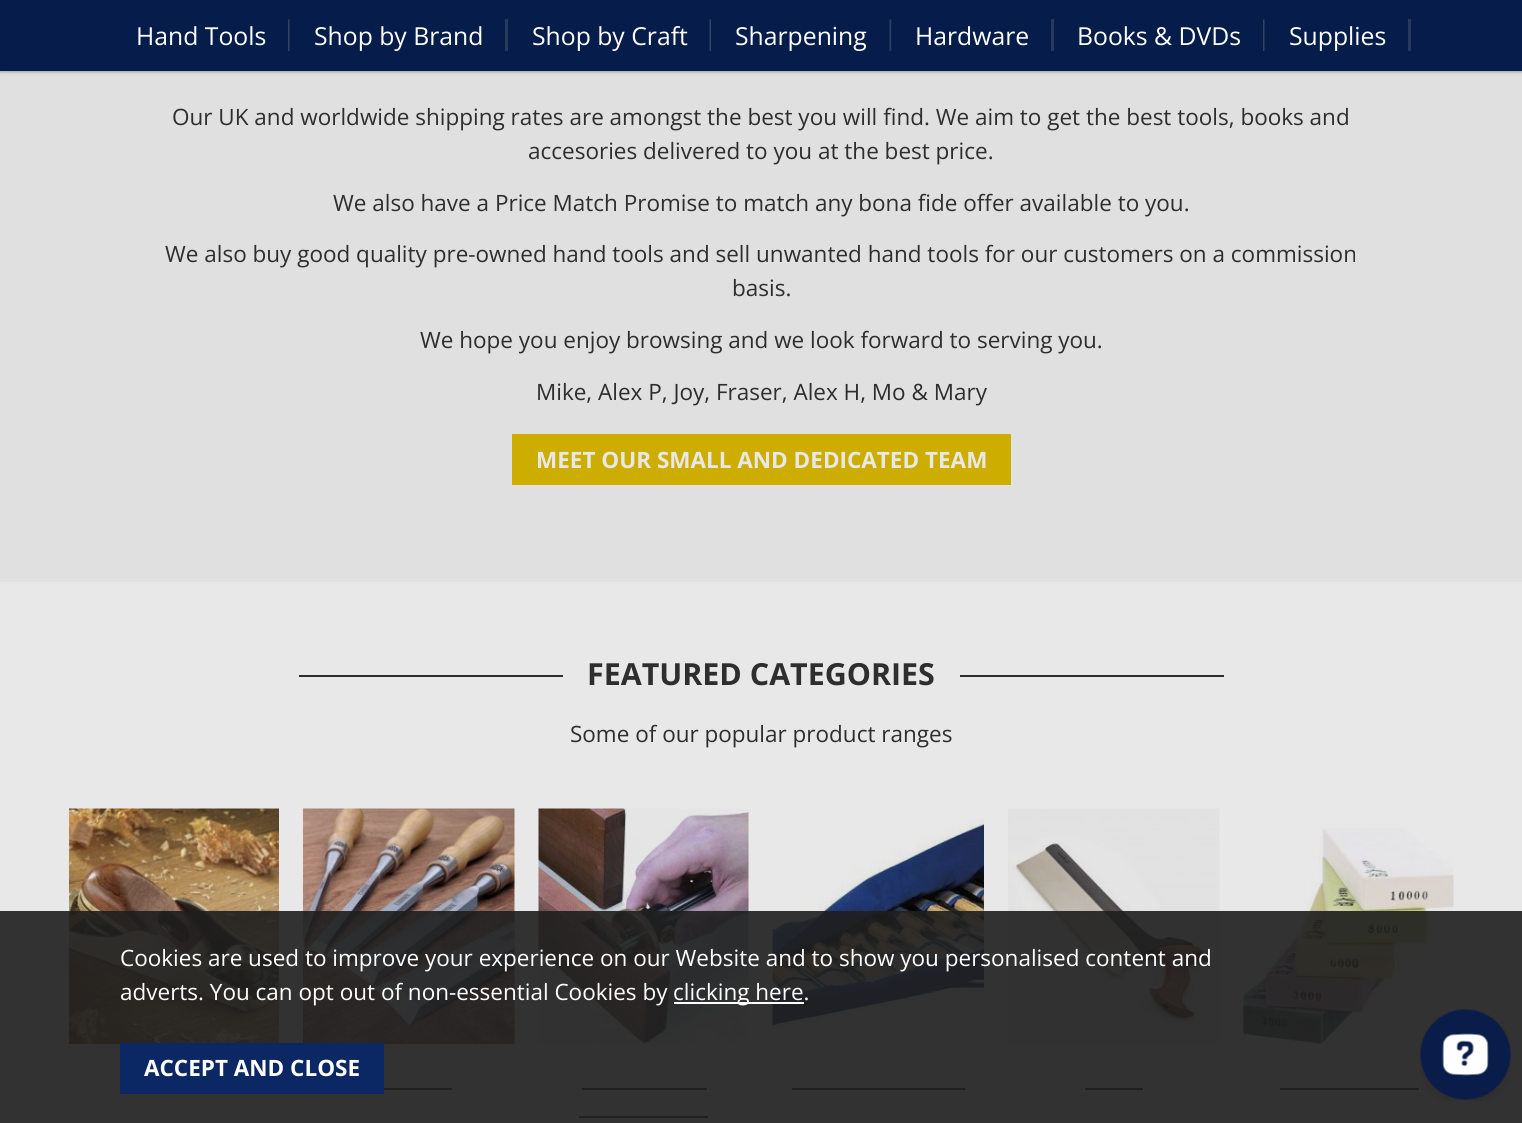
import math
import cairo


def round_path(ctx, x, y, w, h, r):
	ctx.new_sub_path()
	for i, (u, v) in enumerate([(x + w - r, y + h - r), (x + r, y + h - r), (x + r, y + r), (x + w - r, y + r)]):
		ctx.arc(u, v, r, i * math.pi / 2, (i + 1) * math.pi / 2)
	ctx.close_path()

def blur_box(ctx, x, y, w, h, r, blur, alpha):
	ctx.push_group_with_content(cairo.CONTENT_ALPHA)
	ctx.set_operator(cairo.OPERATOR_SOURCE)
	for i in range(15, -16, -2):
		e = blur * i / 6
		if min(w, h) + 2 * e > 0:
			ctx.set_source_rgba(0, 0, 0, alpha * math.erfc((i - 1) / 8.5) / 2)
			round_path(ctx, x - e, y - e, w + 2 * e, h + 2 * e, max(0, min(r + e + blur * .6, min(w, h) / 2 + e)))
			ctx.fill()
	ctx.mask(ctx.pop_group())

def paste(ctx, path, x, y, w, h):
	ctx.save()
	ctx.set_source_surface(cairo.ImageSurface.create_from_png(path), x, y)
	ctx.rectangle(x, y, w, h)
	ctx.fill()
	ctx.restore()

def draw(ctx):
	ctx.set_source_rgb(0.91, 0.91, 0.91)
	ctx.paint()
	ctx.set_source_rgb(0.878, 0.878, 0.882)
	ctx.rectangle(0, 71, 1522, 511)
	ctx.fill()
	ctx.set_source_rgb(0, 0, 0)
	blur_box(ctx, 0, 2, 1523, 70, 0, 1.5, 0.3)
	ctx.set_source_rgb(0.027, 0.11, 0.29)
	ctx.rectangle(0, 0, 1522, 71)
	ctx.fill()
	paste(ctx, 'media/1.png', 288, 19, 2, 32)
	ctx.select_font_face('Open Sans')
	ctx.set_font_size(24.75)
	ctx.set_source_rgb(1, 1, 1)
	ctx.move_to(136, 45)
	ctx.show_text('Hand Tools')
	ctx.set_source_rgb(0.161, 0.224, 0.369)
	ctx.rectangle(505, 19, 3, 32)
	ctx.fill()
	ctx.set_source_rgb(1, 1, 1)
	ctx.move_to(314, 45)
	ctx.show_text('Shop by Brand')
	paste(ctx, 'media/2.png', 709, 19, 2, 32)
	ctx.move_to(532, 45)
	ctx.show_text('Shop by Craft')
	paste(ctx, 'media/3.png', 889, 19, 3, 33)
	ctx.move_to(735, 45)
	ctx.show_text('Sharpening')
	ctx.set_source_rgb(0.161, 0.224, 0.369)
	ctx.rectangle(1051, 19, 3, 32)
	ctx.fill()
	ctx.set_source_rgb(1, 1, 1)
	ctx.move_to(915, 45)
	ctx.show_text('Hardware')
	paste(ctx, 'media/1.png', 1263, 19, 2, 32)
	ctx.move_to(1077, 45)
	ctx.show_text('Books & DVDs')
	ctx.set_source_rgb(0.161, 0.224, 0.369)
	ctx.rectangle(1408, 19, 3, 32)
	ctx.fill()
	ctx.set_source_rgb(1, 1, 1)
	ctx.move_to(1289, 45)
	ctx.show_text('Supplies')
	ctx.set_font_size(22.5)
	ctx.set_source_rgb(0.18, 0.18, 0.18)
	for x, y, s in [
		(172, 125, 'Our UK and worldwide shipping rates are amongst the best you will find. We aim to get the best tools, books and'),
		(528, 159, 'accesories delivered to you at the best price.'),
		(333, 211, 'We also have a Price Match Promise to match any bona fide offer available to you.'),
		(165, 262, 'We also buy good quality pre-owned hand tools and sell unwanted hand tools for our customers on a commission'),
		(732, 296, 'basis.'),
		(420, 348, 'We hope you enjoy browsing and we look forward to serving you.'),
		(536, 400, 'Mike, Alex P, Joy, Fraser, Alex H, Mo & Mary'),
	]:
		ctx.move_to(x, y)
		ctx.show_text(s)
	ctx.set_source_rgb(0.804, 0.678, 0)
	ctx.rectangle(512, 434, 499, 51)
	ctx.fill()
	ctx.select_font_face('Open Sans', cairo.FONT_SLANT_NORMAL, cairo.FONT_WEIGHT_BOLD)
	ctx.set_source_rgb(0.91, 0.91, 0.91)
	ctx.move_to(536, 468)
	ctx.show_text('MEET OUR SMALL AND DEDICATED TEAM')
	ctx.set_source_rgb(0.18, 0.18, 0.18)
	ctx.rectangle(299, 675, 264, 2)
	ctx.fill()
	ctx.set_font_size(30.4)
	ctx.move_to(587, 685)
	ctx.show_text('FEATURED CATEGORIES')
	ctx.rectangle(960, 675, 264, 2)
	ctx.fill()
	ctx.select_font_face('Open Sans')
	ctx.set_font_size(22.5)
	ctx.move_to(570, 742)
	ctx.show_text('Some of our popular product ranges')
	paste(ctx, 'media/4.png', 69, 808, 210, 236)
	paste(ctx, 'media/5.png', 303, 808, 212, 236)
	ctx.rectangle(384, 1088, 68, 2)
	ctx.fill()
	paste(ctx, 'media/6.png', 538, 808, 211, 236)
	ctx.rectangle(582, 1088, 125, 2)
	ctx.fill()
	ctx.rectangle(579, 1116, 129, 2)
	ctx.fill()
	paste(ctx, 'media/7.png', 772, 817, 212, 213)
	ctx.rectangle(792, 1088, 173, 2)
	ctx.fill()
	paste(ctx, 'media/8.png', 1008, 808, 212, 236)
	ctx.rectangle(1085, 1088, 58, 2)
	ctx.fill()
	paste(ctx, 'media/9.png', 1243, 828, 211, 216)
	ctx.rectangle(1280, 1088, 139, 2)
	ctx.fill()
	ctx.set_source_rgba(0.118, 0.118, 0.118, 0.9)
	ctx.rectangle(0, 911, 1522, 212)
	ctx.fill()
	ctx.set_source_rgb(1, 1, 1)
	ctx.move_to(120, 966)
	ctx.show_text('Cookies are used to improve your experience on our Website and to show you personalised content and')
	ctx.move_to(120, 1000)
	ctx.show_text('adverts. You can opt out of non-essential Cookies by')
	ctx.rectangle(674, 1002, 130, 2)
	ctx.fill()
	ctx.move_to(673, 1000)
	ctx.show_text('clicking here.')
	ctx.set_source_rgb(0.043, 0.153, 0.392)
	ctx.rectangle(120, 1043, 264, 51)
	ctx.fill()
	ctx.select_font_face('Open Sans', cairo.FONT_SLANT_NORMAL, cairo.FONT_WEIGHT_BOLD)
	ctx.set_source_rgb(1, 1, 1)
	ctx.move_to(144, 1076)
	ctx.show_text('ACCEPT AND CLOSE')
	paste(ctx, 'media/10.png', 1420, 1009, 91, 92)


surface = cairo.ImageSurface(cairo.FORMAT_RGB24, 1522, 1123)
ctx = cairo.Context(surface)
options = cairo.FontOptions()
options.set_hint_metrics(cairo.HINT_METRICS_OFF)
options.set_hint_style(cairo.HINT_STYLE_NONE)
ctx.set_font_options(options)
ctx.set_miter_limit(4)
draw(ctx)
surface.write_to_png('image.png')
